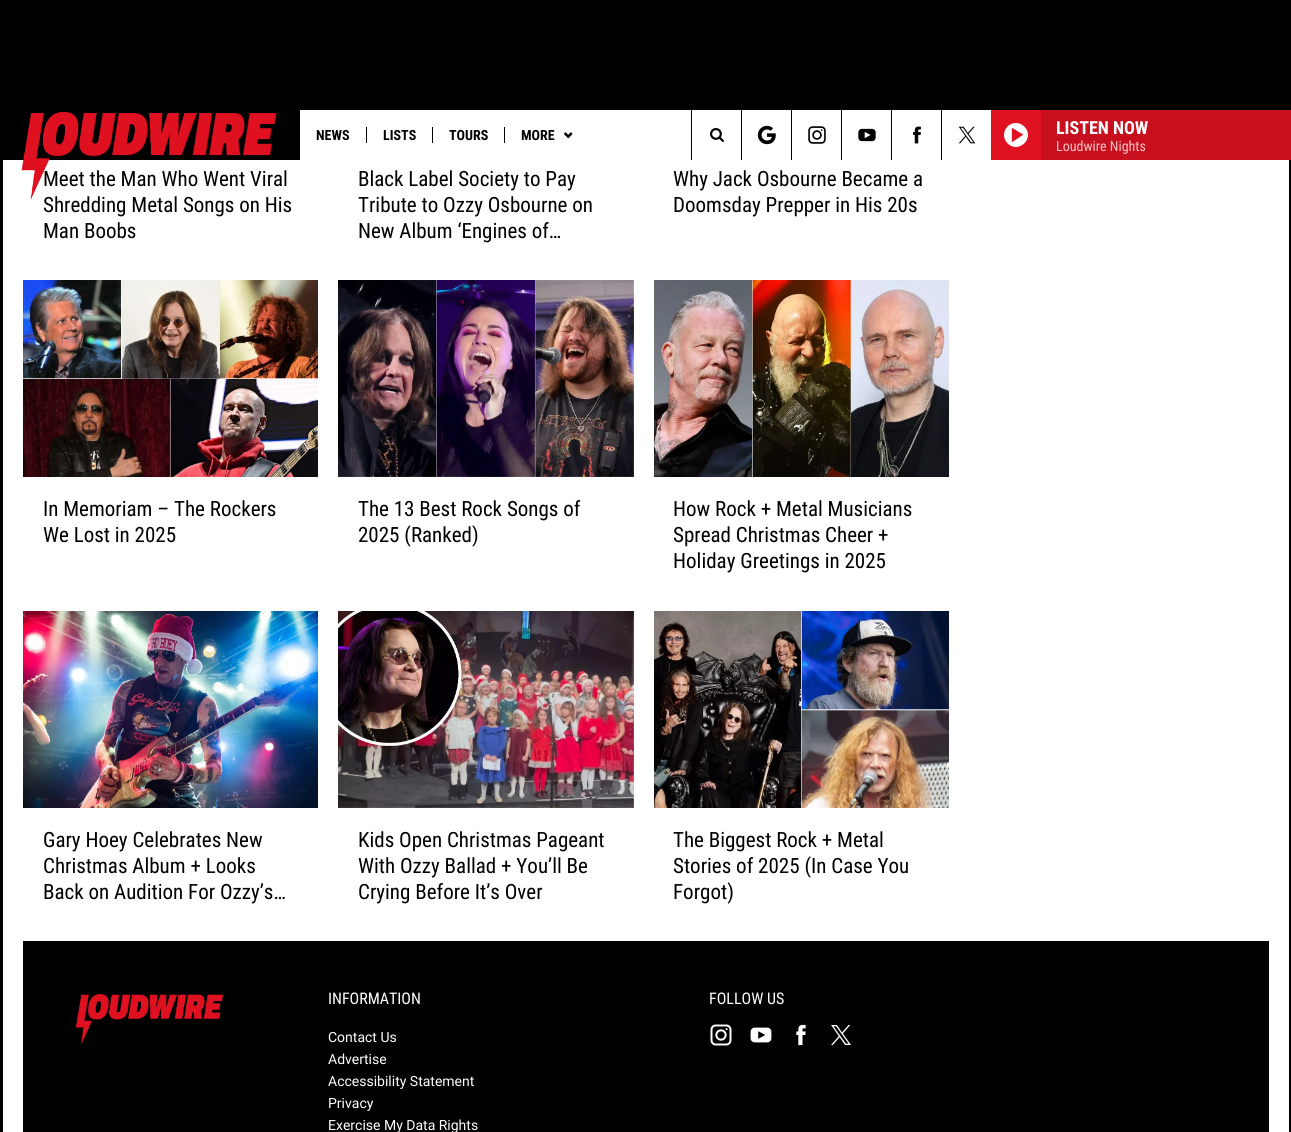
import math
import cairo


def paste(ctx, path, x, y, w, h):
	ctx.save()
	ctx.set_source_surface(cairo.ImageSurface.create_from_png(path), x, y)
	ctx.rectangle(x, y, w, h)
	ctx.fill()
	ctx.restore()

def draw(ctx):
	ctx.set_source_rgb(0, 0, 0)
	ctx.paint()
	ctx.set_source_rgb(1, 1, 1)
	ctx.rectangle(3, 160, 1286, 972)
	ctx.fill()
	ctx.select_font_face('Roboto Condensed')
	ctx.set_font_size(21)
	ctx.set_source_rgb(0, 0, 0)
	ctx.move_to(43, 186)
	ctx.show_text('Meet the Man Who Went Viral')
	ctx.move_to(43, 212)
	ctx.show_text('Shredding Metal Songs on His')
	paste(ctx, 'media/1.png', 21, 111, 256, 89)
	ctx.set_source_rgb(1, 1, 1)
	ctx.rectangle(300, 110, 691, 50)
	ctx.fill()
	ctx.select_font_face('Roboto Condensed', cairo.FONT_SLANT_NORMAL, cairo.FONT_WEIGHT_BOLD)
	ctx.set_font_size(14)
	ctx.set_source_rgb(0, 0, 0)
	ctx.move_to(316, 140)
	ctx.show_text('NEWS')
	ctx.rectangle(366, 127, 1, 16)
	ctx.fill()
	ctx.move_to(383, 140)
	ctx.show_text('LISTS')
	ctx.rectangle(432, 127, 1, 16)
	ctx.fill()
	ctx.move_to(449, 140)
	ctx.show_text('TOURS')
	ctx.rectangle(504, 127, 1, 16)
	ctx.fill()
	ctx.move_to(521, 140)
	ctx.show_text('MORE')
	paste(ctx, 'media/2.png', 564, 132, 9, 7)
	ctx.rectangle(691, 110, 1, 50)
	ctx.fill()
	paste(ctx, 'media/3.png', 710, 128, 14, 14)
	ctx.rectangle(741, 110, 1, 50)
	ctx.fill()
	paste(ctx, 'media/4.png', 757, 125, 19, 20)
	ctx.rectangle(791, 110, 1, 50)
	ctx.fill()
	paste(ctx, 'media/5.png', 808, 126, 18, 18)
	ctx.rectangle(841, 110, 1, 50)
	ctx.fill()
	paste(ctx, 'media/6.png', 858, 128, 18, 14)
	ctx.rectangle(891, 110, 1, 50)
	ctx.fill()
	paste(ctx, 'media/7.png', 913, 126, 8, 18)
	ctx.rectangle(941, 110, 1, 50)
	ctx.fill()
	paste(ctx, 'media/8.png', 958, 126, 18, 18)
	ctx.set_source_rgb(0.878, 0.067, 0.129)
	ctx.rectangle(991, 110, 50, 50)
	ctx.fill()
	paste(ctx, 'media/9.png', 1004, 123, 24, 24)
	ctx.set_source_rgb(0.784, 0.059, 0.118)
	ctx.rectangle(1041, 110, 250, 50)
	ctx.fill()
	ctx.set_font_size(18)
	ctx.set_source_rgb(1, 1, 1)
	ctx.move_to(1056, 134)
	ctx.show_text('LISTEN NOW')
	ctx.select_font_face('Roboto Condensed')
	ctx.set_font_size(14)
	ctx.set_source_rgb(0.98, 0.765, 0.78)
	ctx.move_to(1056, 151)
	ctx.show_text('Loudwire Nights')
	ctx.set_font_size(21)
	ctx.set_source_rgb(0, 0, 0)
	for x, y, s in [
		(43, 238, 'Man Boobs'),
		(358, 186, 'Black Label Society to Pay'),
		(358, 212, 'Tribute to Ozzy Osbourne on'),
		(358, 238, 'New Album ‘Engines of…'),
		(673, 186, 'Why Jack Osbourne Became a'),
		(673, 212, 'Doomsday Prepper in His 20s'),
	]:
		ctx.move_to(x, y)
		ctx.show_text(s)
	paste(ctx, 'media/10.png', 23, 280, 295, 197)
	ctx.move_to(43, 516)
	ctx.show_text('In Memoriam – The Rockers')
	ctx.move_to(43, 542)
	ctx.show_text('We Lost in 2025')
	paste(ctx, 'media/11.png', 338, 280, 296, 197)
	ctx.move_to(358, 516)
	ctx.show_text('The 13 Best Rock Songs of')
	ctx.move_to(358, 542)
	ctx.show_text('2025 (Ranked)')
	paste(ctx, 'media/12.png', 654, 280, 295, 197)
	for x, y, s in [
		(673, 516, 'How Rock + Metal Musicians'),
		(673, 542, 'Spread Christmas Cheer +'),
		(673, 568, 'Holiday Greetings in 2025'),
	]:
		ctx.move_to(x, y)
		ctx.show_text(s)
	paste(ctx, 'media/13.png', 23, 611, 295, 197)
	for x, y, s in [
		(43, 847, 'Gary Hoey Celebrates New'),
		(43, 873, 'Christmas Album + Looks'),
		(43, 899, 'Back on Audition For Ozzy’s…'),
	]:
		ctx.move_to(x, y)
		ctx.show_text(s)
	paste(ctx, 'media/14.png', 338, 611, 296, 197)
	for x, y, s in [
		(358, 847, 'Kids Open Christmas Pageant'),
		(358, 873, 'With Ozzy Ballad + You’ll Be'),
		(358, 899, 'Crying Before It’s Over'),
	]:
		ctx.move_to(x, y)
		ctx.show_text(s)
	paste(ctx, 'media/15.png', 654, 611, 295, 197)
	for x, y, s in [
		(673, 847, 'The Biggest Rock + Metal'),
		(673, 873, 'Stories of 2025 (In Case You'),
		(673, 899, 'Forgot)'),
	]:
		ctx.move_to(x, y)
		ctx.show_text(s)
	ctx.rectangle(23, 941, 1246, 191)
	ctx.fill()
	paste(ctx, 'media/16.png', 75, 993, 149, 52)
	ctx.set_font_size(16)
	ctx.set_source_rgb(1, 1, 1)
	ctx.move_to(328, 1004)
	ctx.show_text('INFORMATION')
	ctx.select_font_face('Roboto')
	ctx.set_font_size(14)
	for x, y, s in [
		(328, 1042, 'Contact Us'),
		(328, 1064, 'Advertise'),
		(328, 1086, 'Accessibility Statement'),
		(328, 1108, 'Privacy'),
		(328, 1130, 'Exercise My Data Rights'),
	]:
		ctx.move_to(x, y)
		ctx.show_text(s)
	ctx.select_font_face('Roboto Condensed')
	ctx.set_font_size(16)
	ctx.move_to(709, 1004)
	ctx.show_text('FOLLOW US')
	paste(ctx, 'media/17.png', 710, 1024, 22, 22)
	paste(ctx, 'media/18.png', 750, 1027, 22, 16)
	paste(ctx, 'media/19.png', 796, 1024, 10, 22)
	paste(ctx, 'media/20.png', 831, 1025, 20, 20)


surface = cairo.ImageSurface(cairo.FORMAT_RGB24, 1291, 1132)
ctx = cairo.Context(surface)
options = cairo.FontOptions()
options.set_hint_metrics(cairo.HINT_METRICS_OFF)
options.set_hint_style(cairo.HINT_STYLE_NONE)
ctx.set_font_options(options)
ctx.set_miter_limit(4)
draw(ctx)
surface.write_to_png('image.png')
